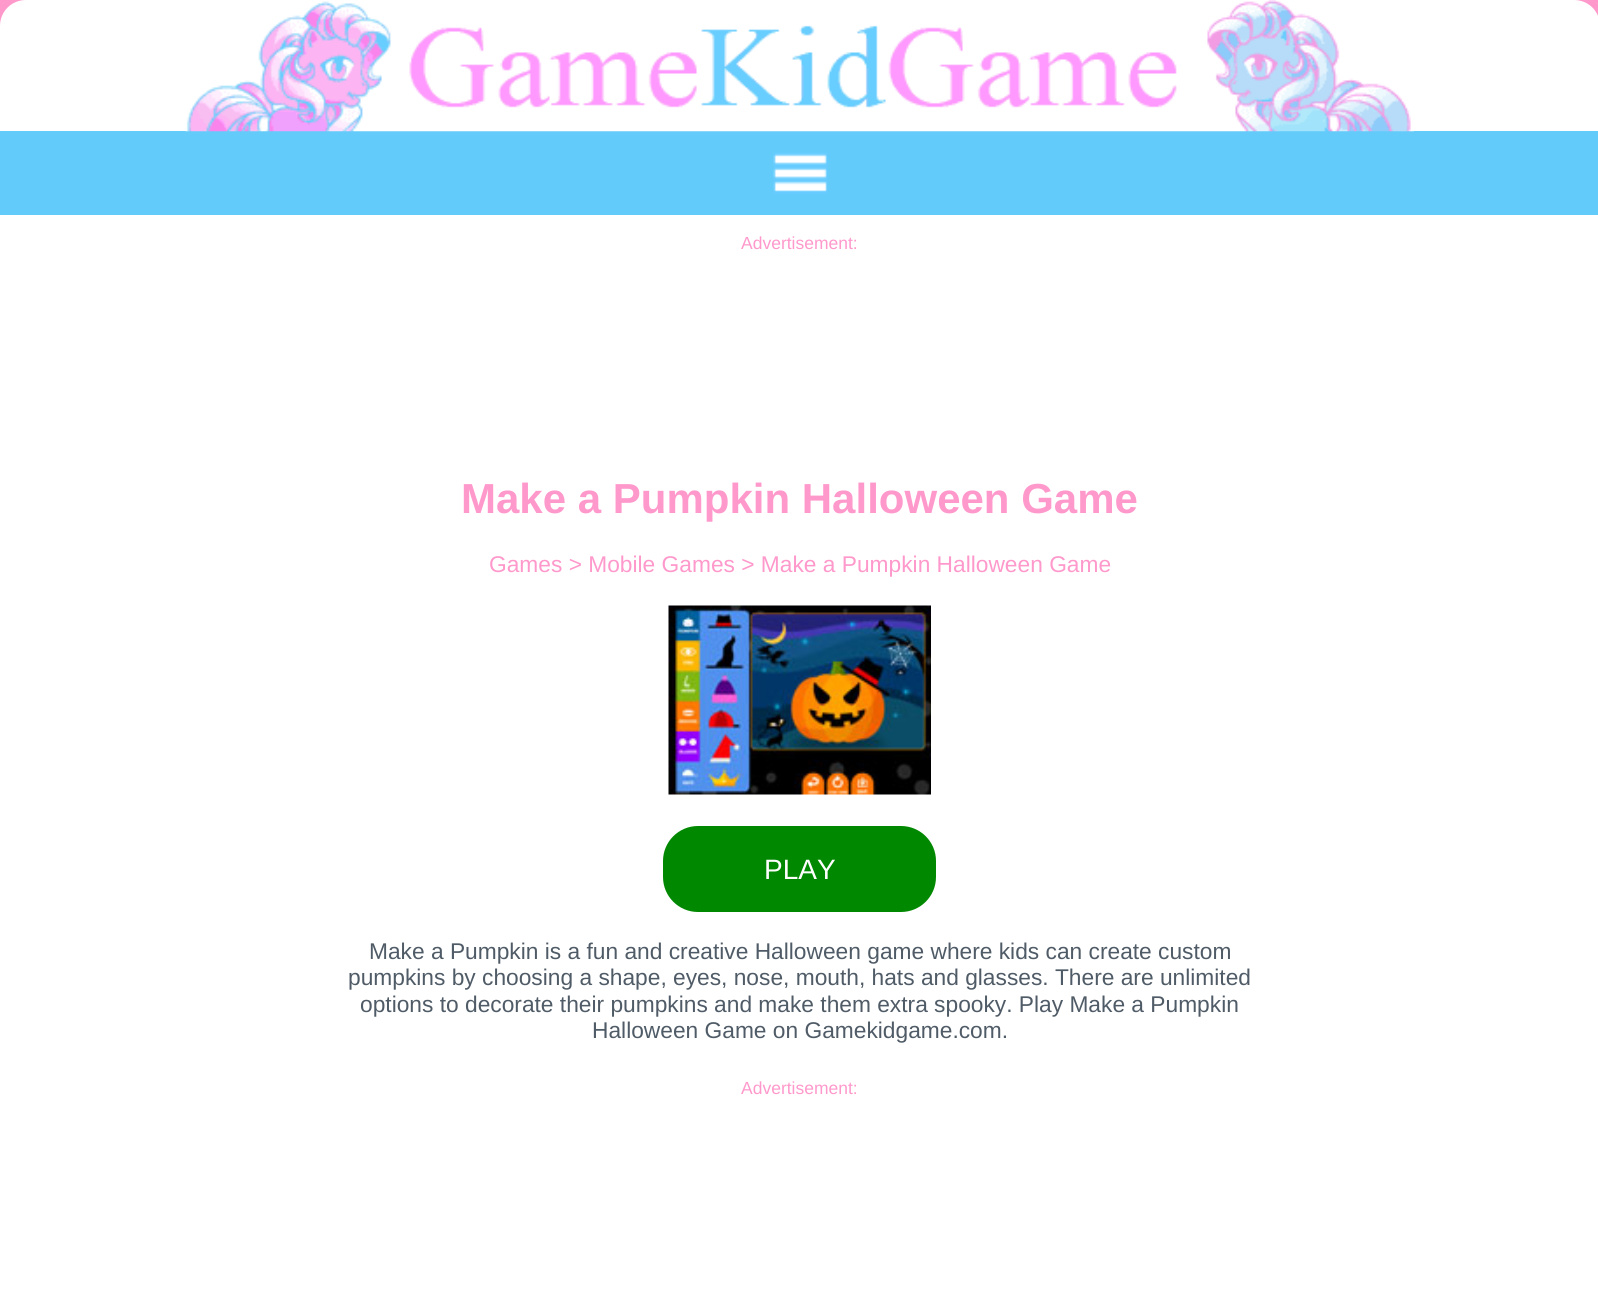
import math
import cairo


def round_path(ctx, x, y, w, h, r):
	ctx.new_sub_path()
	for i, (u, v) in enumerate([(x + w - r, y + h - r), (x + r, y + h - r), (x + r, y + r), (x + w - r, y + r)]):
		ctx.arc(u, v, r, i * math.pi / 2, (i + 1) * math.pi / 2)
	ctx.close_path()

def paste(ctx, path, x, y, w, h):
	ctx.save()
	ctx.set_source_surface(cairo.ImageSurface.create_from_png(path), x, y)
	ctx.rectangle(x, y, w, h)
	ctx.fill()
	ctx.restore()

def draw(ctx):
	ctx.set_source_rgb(1, 0.6, 0.8)
	ctx.paint()
	ctx.set_source_rgb(1, 1, 1)
	ctx.new_path()
	ctx.move_to(26, 0)
	ctx.line_to(1574, 0)
	ctx.curve_to(1588.5, 0, 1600, 11.5, 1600, 26)
	ctx.line_to(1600, 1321)
	ctx.line_to(0, 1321)
	ctx.line_to(0, 26)
	ctx.curve_to(0, 11.5, 11.5, 0, 26, 0)
	ctx.close_path()
	ctx.fill()
	ctx.set_source_rgb(0.384, 0.796, 0.973)
	ctx.rectangle(0, 131, 1598, 84)
	ctx.fill()
	paste(ctx, 'media/1.png', 185, 0, 1229, 132)
	paste(ctx, 'media/2.png', 773, 152, 55, 42)
	ctx.select_font_face('Liberation Sans')
	ctx.set_font_size(17.5)
	ctx.set_source_rgb(1, 0.6, 0.8)
	ctx.move_to(741, 249)
	ctx.show_text('Advertisement:')
	ctx.select_font_face('Liberation Sans', cairo.FONT_SLANT_NORMAL, cairo.FONT_WEIGHT_BOLD)
	ctx.set_font_size(42)
	ctx.move_to(461, 513)
	ctx.show_text('Make a Pumpkin Halloween Game')
	ctx.select_font_face('Liberation Sans')
	ctx.set_font_size(22.75)
	ctx.move_to(489, 572)
	ctx.show_text('Games > Mobile Games > Make a Pumpkin Halloween Game')
	paste(ctx, 'media/3.png', 668, 605, 263, 190)
	ctx.set_source_rgb(0.004, 0.533, 0.004)
	round_path(ctx, 663, 826, 273, 86, 35)
	ctx.fill()
	ctx.set_font_size(28)
	ctx.set_source_rgb(1, 1, 1)
	ctx.move_to(764, 879)
	ctx.show_text('PLAY')
	ctx.set_font_size(22.75)
	ctx.set_source_rgb(0.31, 0.357, 0.4)
	for x, y, s in [
		(369, 959, 'Make a Pumpkin is a fun and creative Halloween game where kids can create custom'),
		(348, 985, 'pumpkins by choosing a shape, eyes, nose, mouth, hats and glasses. There are unlimited'),
		(360, 1012, 'options to decorate their pumpkins and make them extra spooky. Play Make a Pumpkin'),
		(592, 1038, 'Halloween Game on Gamekidgame.com.'),
	]:
		ctx.move_to(x, y)
		ctx.show_text(s)
	ctx.set_font_size(17.5)
	ctx.set_source_rgb(1, 0.6, 0.8)
	ctx.move_to(741, 1094)
	ctx.show_text('Advertisement:')


surface = cairo.ImageSurface(cairo.FORMAT_RGB24, 1598, 1295)
ctx = cairo.Context(surface)
options = cairo.FontOptions()
options.set_hint_metrics(cairo.HINT_METRICS_OFF)
options.set_hint_style(cairo.HINT_STYLE_NONE)
ctx.set_font_options(options)
ctx.set_miter_limit(4)
draw(ctx)
surface.write_to_png('image.png')
